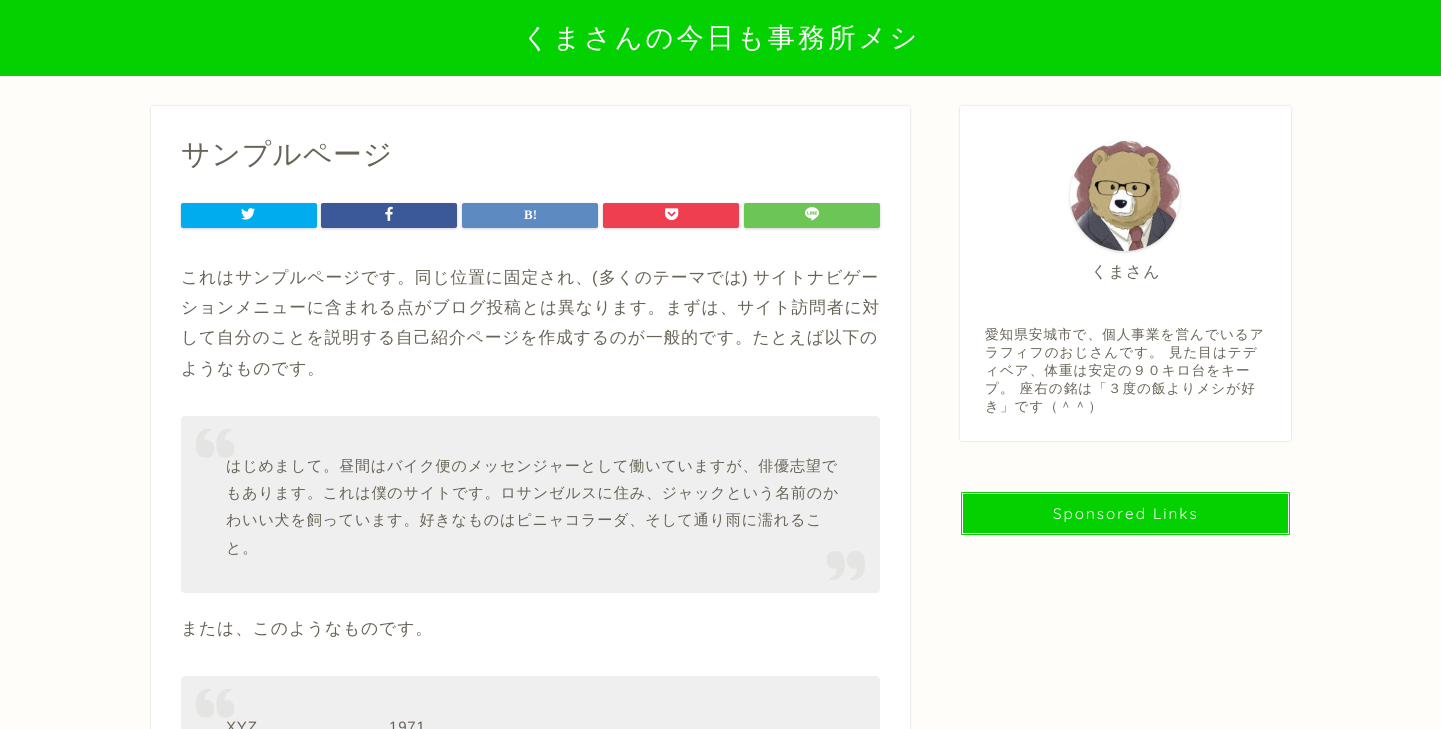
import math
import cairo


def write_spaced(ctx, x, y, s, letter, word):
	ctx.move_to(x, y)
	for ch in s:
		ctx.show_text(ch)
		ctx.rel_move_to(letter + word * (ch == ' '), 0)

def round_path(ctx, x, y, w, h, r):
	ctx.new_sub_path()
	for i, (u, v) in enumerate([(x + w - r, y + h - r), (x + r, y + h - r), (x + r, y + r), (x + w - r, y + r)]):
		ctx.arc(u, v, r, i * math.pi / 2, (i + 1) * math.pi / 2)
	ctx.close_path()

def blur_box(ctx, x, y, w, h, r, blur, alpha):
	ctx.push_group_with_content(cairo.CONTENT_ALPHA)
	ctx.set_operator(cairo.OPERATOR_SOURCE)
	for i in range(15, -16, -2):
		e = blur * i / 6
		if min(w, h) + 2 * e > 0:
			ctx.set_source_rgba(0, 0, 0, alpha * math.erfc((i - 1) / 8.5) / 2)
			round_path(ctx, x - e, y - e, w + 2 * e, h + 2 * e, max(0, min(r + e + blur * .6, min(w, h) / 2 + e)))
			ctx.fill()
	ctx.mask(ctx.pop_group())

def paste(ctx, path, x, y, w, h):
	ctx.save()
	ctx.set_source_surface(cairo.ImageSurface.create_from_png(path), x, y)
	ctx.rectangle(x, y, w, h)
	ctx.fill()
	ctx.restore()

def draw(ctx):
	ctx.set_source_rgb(1, 0.992, 0.976)
	ctx.paint()
	ctx.set_source_rgb(0.012, 0.82, 0)
	ctx.rectangle(0, 0, 1441, 76)
	ctx.fill()
	ctx.select_font_face('WenQuanYi Zen Hei Medium')
	ctx.set_font_size(27.25)
	ctx.set_source_rgb(1, 1, 1)
	write_spaced(ctx, 522, 47, 'くまさんの今日も事務所メシ', 3, 0)
	ctx.set_source_rgb(0, 0, 0)
	blur_box(ctx, 151, 106, 759, 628, 2, 1, 0.18)
	ctx.set_source_rgb(1, 1, 1)
	round_path(ctx, 151, 106, 759, 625, 2)
	ctx.fill()
	ctx.set_font_size(28.75)
	ctx.set_source_rgb(0.408, 0.388, 0.341)
	write_spaced(ctx, 181, 164, 'サンプルページ', 1, 0)
	ctx.set_source_rgb(0, 0, 0)
	blur_box(ctx, 181, 204, 136, 25, 2, 1.5, 0.18)
	ctx.set_source_rgb(0, 0.675, 0.933)
	round_path(ctx, 182, 204, 134, 23, 1)
	ctx.fill_preserve()
	ctx.stroke()
	paste(ctx, 'media/1.png', 241, 208, 14, 12)
	ctx.set_source_rgb(0, 0, 0)
	blur_box(ctx, 321, 204, 136, 25, 2, 1.5, 0.18)
	ctx.set_source_rgb(0.231, 0.349, 0.596)
	round_path(ctx, 322, 204, 134, 23, 1)
	ctx.fill_preserve()
	ctx.stroke()
	paste(ctx, 'media/2.png', 385, 206, 8, 15)
	ctx.set_source_rgb(0, 0, 0)
	blur_box(ctx, 462, 204, 136, 25, 2, 1.5, 0.18)
	ctx.set_source_rgb(0.365, 0.541, 0.757)
	round_path(ctx, 463, 204, 134, 23, 1)
	ctx.fill_preserve()
	ctx.stroke()
	ctx.select_font_face('Liberation Serif', cairo.FONT_SLANT_NORMAL, cairo.FONT_WEIGHT_BOLD)
	ctx.set_font_size(13)
	ctx.set_source_rgb(1, 1, 1)
	ctx.move_to(524, 219)
	ctx.show_text('B!')
	ctx.set_source_rgb(0, 0, 0)
	blur_box(ctx, 603, 204, 136, 25, 2, 1.5, 0.18)
	ctx.set_source_rgb(0.941, 0.243, 0.318)
	round_path(ctx, 604, 204, 134, 23, 1)
	ctx.fill_preserve()
	ctx.stroke()
	paste(ctx, 'media/3.png', 665, 208, 14, 13)
	ctx.set_source_rgb(0, 0, 0)
	blur_box(ctx, 744, 204, 136, 25, 2, 1.5, 0.18)
	ctx.set_source_rgb(0.424, 0.776, 0.333)
	round_path(ctx, 745, 204, 134, 23, 1)
	ctx.fill_preserve()
	ctx.stroke()
	paste(ctx, 'media/4.png', 805, 207, 15, 14)
	ctx.select_font_face('WenQuanYi Zen Hei Medium')
	ctx.set_font_size(16.8)
	ctx.set_source_rgb(0.408, 0.388, 0.341)
	write_spaced(ctx, 181, 283, 'これはサンプルページです。同じ位置に固定され、', 0.85, 0)
	ctx.select_font_face('Liberation Sans')
	write_spaced(ctx, 592, 283, '(', 0.85, 0)
	ctx.select_font_face('WenQuanYi Zen Hei Medium')
	write_spaced(ctx, 599, 283, '多くのテーマでは', 0.85, 0)
	ctx.select_font_face('Liberation Sans')
	write_spaced(ctx, 742, 283, ')', 0.85, 0)
	ctx.select_font_face('WenQuanYi Zen Hei Medium')
	for x, y, s in [
		(753, 283, 'サイトナビゲー'),
		(181, 313, 'ションメニューに含まれる点がブログ投稿とは異なります。まずは、サイト訪問者に対'),
		(181, 343, 'して自分のことを説明する自己紹介ページを作成するのが一般的です。たとえば以下の'),
		(181, 374, 'ようなものです。'),
	]:
		write_spaced(ctx, x, y, s, 0.85, 0)
	ctx.set_source_rgb(0.937, 0.937, 0.937)
	round_path(ctx, 181, 416, 699, 177, 4)
	ctx.fill()
	paste(ctx, 'media/5.png', 196, 429, 39, 29)
	ctx.set_font_size(15.1)
	ctx.set_source_rgb(0.408, 0.388, 0.341)
	for x, y, s in [
		(226, 471, 'はじめまして。昼間はバイク便のメッセンジャーとして働いていますが、俳優志望で'),
		(226, 498, 'もあります。これは僕のサイトです。ロサンゼルスに住み、ジャックという名前のか'),
		(226, 525, 'わいい犬を飼っています。好きなものはピニャコラーダ、そして通り雨に濡れるこ'),
		(226, 553, 'と。'),
	]:
		write_spaced(ctx, x, y, s, 0.75, 0)
	paste(ctx, 'media/6.png', 827, 551, 38, 29)
	ctx.set_font_size(16.8)
	write_spaced(ctx, 181, 634, 'または、このようなものです。', 0.85, 0)
	ctx.set_source_rgb(0.937, 0.937, 0.937)
	round_path(ctx, 181, 676, 699, 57, 4)
	ctx.fill()
	paste(ctx, 'media/5.png', 196, 689, 39, 29)
	ctx.select_font_face('Liberation Sans')
	ctx.set_font_size(15.1)
	ctx.set_source_rgb(0.408, 0.388, 0.341)
	write_spaced(ctx, 226, 732, 'XYZ', 0.75, 0)
	write_spaced(ctx, 389, 732, '1971', 0.75, 0)
	ctx.set_source_rgb(0, 0, 0)
	blur_box(ctx, 960, 106, 331, 335, 2, 1, 0.18)
	ctx.set_source_rgb(1, 1, 1)
	round_path(ctx, 960, 106, 331, 335, 2)
	ctx.fill()
	ctx.set_source_rgb(0, 0, 0)
	blur_box(ctx, 1070, 142, 110, 110, 55, 1.5, 0.18)
	ctx.set_source_rgb(1, 1, 1)
	ctx.arc(1125, 196, 55, 0, 2 * math.pi)
	ctx.fill()
	paste(ctx, 'media/7.png', 1071, 141, 109, 110)
	ctx.select_font_face('WenQuanYi Zen Hei Medium')
	ctx.set_font_size(16)
	ctx.set_source_rgb(0.408, 0.388, 0.341)
	write_spaced(ctx, 1091, 277, 'くまさん', 1, 0)
	ctx.set_font_size(13.6)
	for x, y, s in [
		(985, 339, '愛知県安城市で、個人事業を営んでいるア'),
		(985, 357, 'ラフィフのおじさんです。 見た目はテデ'),
		(985, 375, 'ィベア、体重は安定の９０キロ台をキー'),
		(985, 393, 'プ。 座右の銘は「３度の飯よりメシが好'),
		(985, 411, 'き」です（＾＾）'),
	]:
		write_spaced(ctx, x, y, s, 1, 0)
	ctx.set_source_rgb(0.012, 0.82, 0)
	round_path(ctx, 960.5, 491.5, 330, 44, 1.5)
	ctx.fill_preserve()
	ctx.set_source_rgb(1, 1, 1)
	ctx.set_line_width(1)
	ctx.stroke()
	ctx.rectangle(962.5, 493.5, 326, 40)
	ctx.stroke()
	ctx.select_font_face('Quicksand Light')
	ctx.set_font_size(15.25)
	write_spaced(ctx, 1053, 519, 'Sponsored Links', 2, 0)


surface = cairo.ImageSurface(cairo.FORMAT_RGB24, 1441, 729)
ctx = cairo.Context(surface)
options = cairo.FontOptions()
options.set_hint_metrics(cairo.HINT_METRICS_OFF)
options.set_hint_style(cairo.HINT_STYLE_NONE)
ctx.set_font_options(options)
ctx.set_miter_limit(4)
draw(ctx)
surface.write_to_png('image.png')
